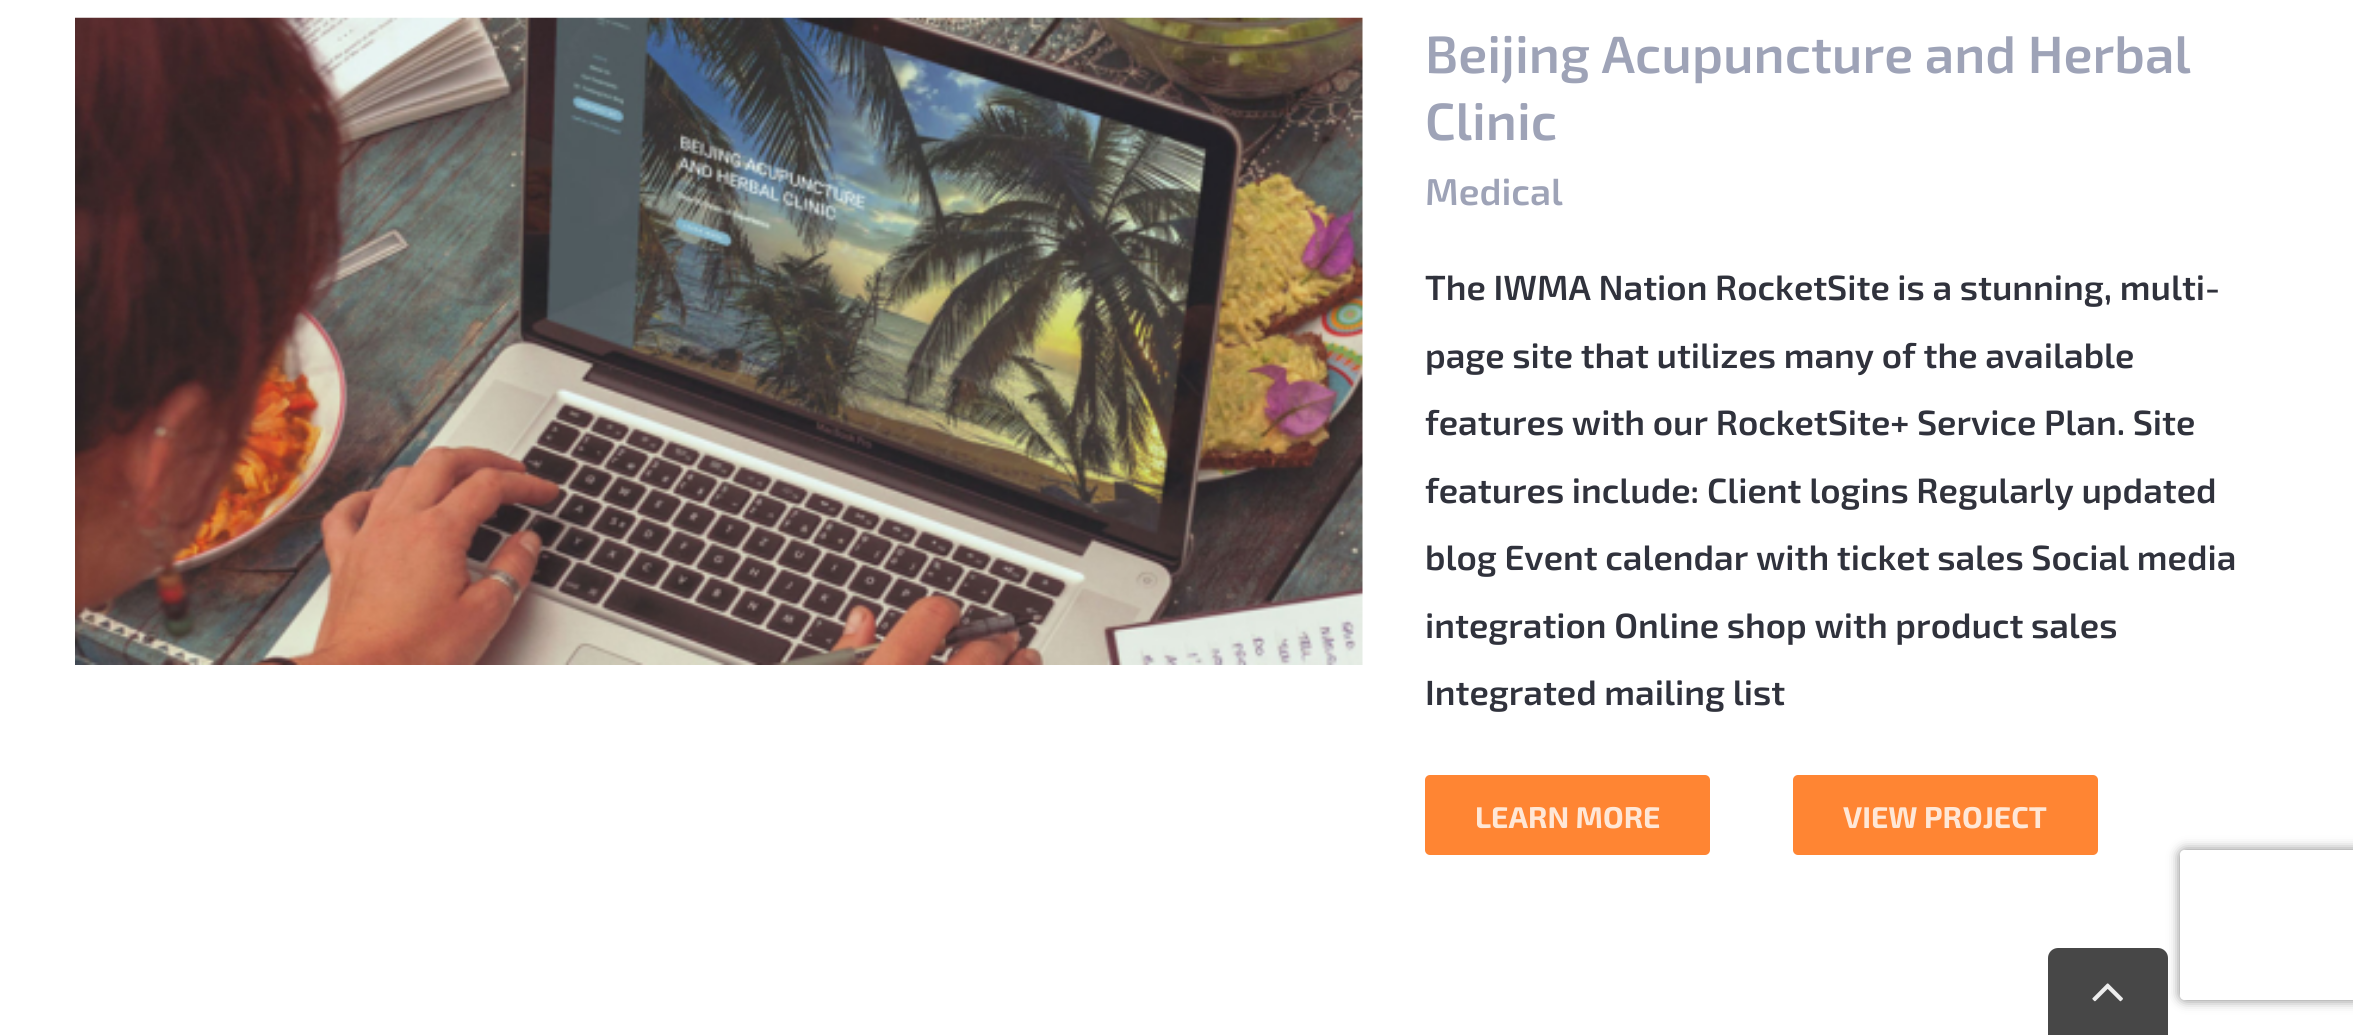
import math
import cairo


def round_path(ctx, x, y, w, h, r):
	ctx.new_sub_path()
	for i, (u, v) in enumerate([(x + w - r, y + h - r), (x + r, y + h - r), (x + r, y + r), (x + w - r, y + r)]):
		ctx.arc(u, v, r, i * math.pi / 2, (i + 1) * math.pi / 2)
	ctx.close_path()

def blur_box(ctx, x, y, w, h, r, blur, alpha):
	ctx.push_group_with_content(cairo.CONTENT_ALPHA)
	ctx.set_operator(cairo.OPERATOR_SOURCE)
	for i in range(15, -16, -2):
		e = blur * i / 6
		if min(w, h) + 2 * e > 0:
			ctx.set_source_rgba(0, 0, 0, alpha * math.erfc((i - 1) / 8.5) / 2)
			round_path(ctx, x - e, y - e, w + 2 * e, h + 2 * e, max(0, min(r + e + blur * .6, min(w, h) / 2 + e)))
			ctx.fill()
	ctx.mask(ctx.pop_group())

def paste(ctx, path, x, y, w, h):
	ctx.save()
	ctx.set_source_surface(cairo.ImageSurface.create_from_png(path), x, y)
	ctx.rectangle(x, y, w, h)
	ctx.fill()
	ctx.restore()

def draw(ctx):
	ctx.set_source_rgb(1, 1, 1)
	ctx.paint()
	paste(ctx, 'media/1.png', 75, 17, 1288, 648)
	ctx.select_font_face('Exo 2 SemiBold')
	ctx.set_font_size(52.5)
	ctx.set_source_rgb(0.62, 0.639, 0.718)
	ctx.move_to(1425, 73)
	ctx.show_text('Beijing Acupuncture and Herbal')
	ctx.move_to(1425, 140)
	ctx.show_text('Clinic')
	ctx.set_font_size(37.5)
	ctx.move_to(1425, 205)
	ctx.show_text('Medical')
	ctx.set_font_size(35)
	ctx.set_source_rgb(0.188, 0.196, 0.235)
	for x, y, s in [
		(1425, 300, 'The IWMA Nation RocketSite is a stunning, multi-'),
		(1425, 368, 'page site that utilizes many of the available'),
		(1425, 435, 'features with our RocketSite+ Service Plan. Site'),
		(1425, 503, 'features include: Client logins Regularly updated'),
		(1425, 570, 'blog Event calendar with ticket sales Social media'),
		(1425, 638, 'integration Online shop with product sales'),
		(1425, 705, 'Integrated mailing list'),
	]:
		ctx.move_to(x, y)
		ctx.show_text(s)
	ctx.set_source_rgb(1, 0.522, 0.2)
	round_path(ctx, 1425, 775, 285, 80, 5)
	ctx.fill()
	ctx.select_font_face('Exo 2', cairo.FONT_SLANT_NORMAL, cairo.FONT_WEIGHT_BOLD)
	ctx.set_font_size(30)
	ctx.set_source_rgb(1, 0.906, 0.839)
	ctx.move_to(1475, 828)
	ctx.show_text('LEARN MORE')
	ctx.set_source_rgb(1, 0.522, 0.2)
	round_path(ctx, 1793, 775, 305, 80, 5)
	ctx.fill()
	ctx.set_source_rgb(1, 0.906, 0.839)
	ctx.move_to(1843, 828)
	ctx.show_text('VIEW PROJECT')
	ctx.save()
	ctx.set_fill_rule(cairo.FILL_RULE_EVEN_ODD)
	ctx.new_path()
	ctx.move_to(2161, 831)
	ctx.line_to(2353, 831)
	ctx.line_to(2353, 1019)
	ctx.line_to(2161, 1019)
	ctx.close_path()
	ctx.move_to(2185, 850)
	ctx.line_to(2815, 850)
	ctx.curve_to(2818, 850, 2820, 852, 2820, 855)
	ctx.line_to(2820, 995)
	ctx.curve_to(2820, 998, 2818, 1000, 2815, 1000)
	ctx.line_to(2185, 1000)
	ctx.curve_to(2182, 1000, 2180, 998, 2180, 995)
	ctx.line_to(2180, 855)
	ctx.curve_to(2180, 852, 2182, 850, 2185, 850)
	ctx.close_path()
	ctx.clip()
	ctx.set_source_rgb(0.502, 0.502, 0.502)
	blur_box(ctx, 2180, 850, 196, 150, 5, 6, 1)
	ctx.restore()
	ctx.set_source_rgb(0.278, 0.278, 0.278)
	ctx.new_path()
	ctx.move_to(2058, 948)
	ctx.line_to(2158, 948)
	ctx.curve_to(2163.5, 948, 2168, 952.5, 2168, 958)
	ctx.line_to(2168, 1035)
	ctx.line_to(2048, 1035)
	ctx.line_to(2048, 958)
	ctx.curve_to(2048, 952.5, 2052.5, 948, 2058, 948)
	ctx.close_path()
	ctx.fill()
	paste(ctx, 'media/2.png', 2092, 983, 31, 19)


surface = cairo.ImageSurface(cairo.FORMAT_RGB24, 2353, 1035)
ctx = cairo.Context(surface)
options = cairo.FontOptions()
options.set_hint_metrics(cairo.HINT_METRICS_OFF)
options.set_hint_style(cairo.HINT_STYLE_NONE)
ctx.set_font_options(options)
ctx.set_miter_limit(4)
draw(ctx)
surface.write_to_png('image.png')
